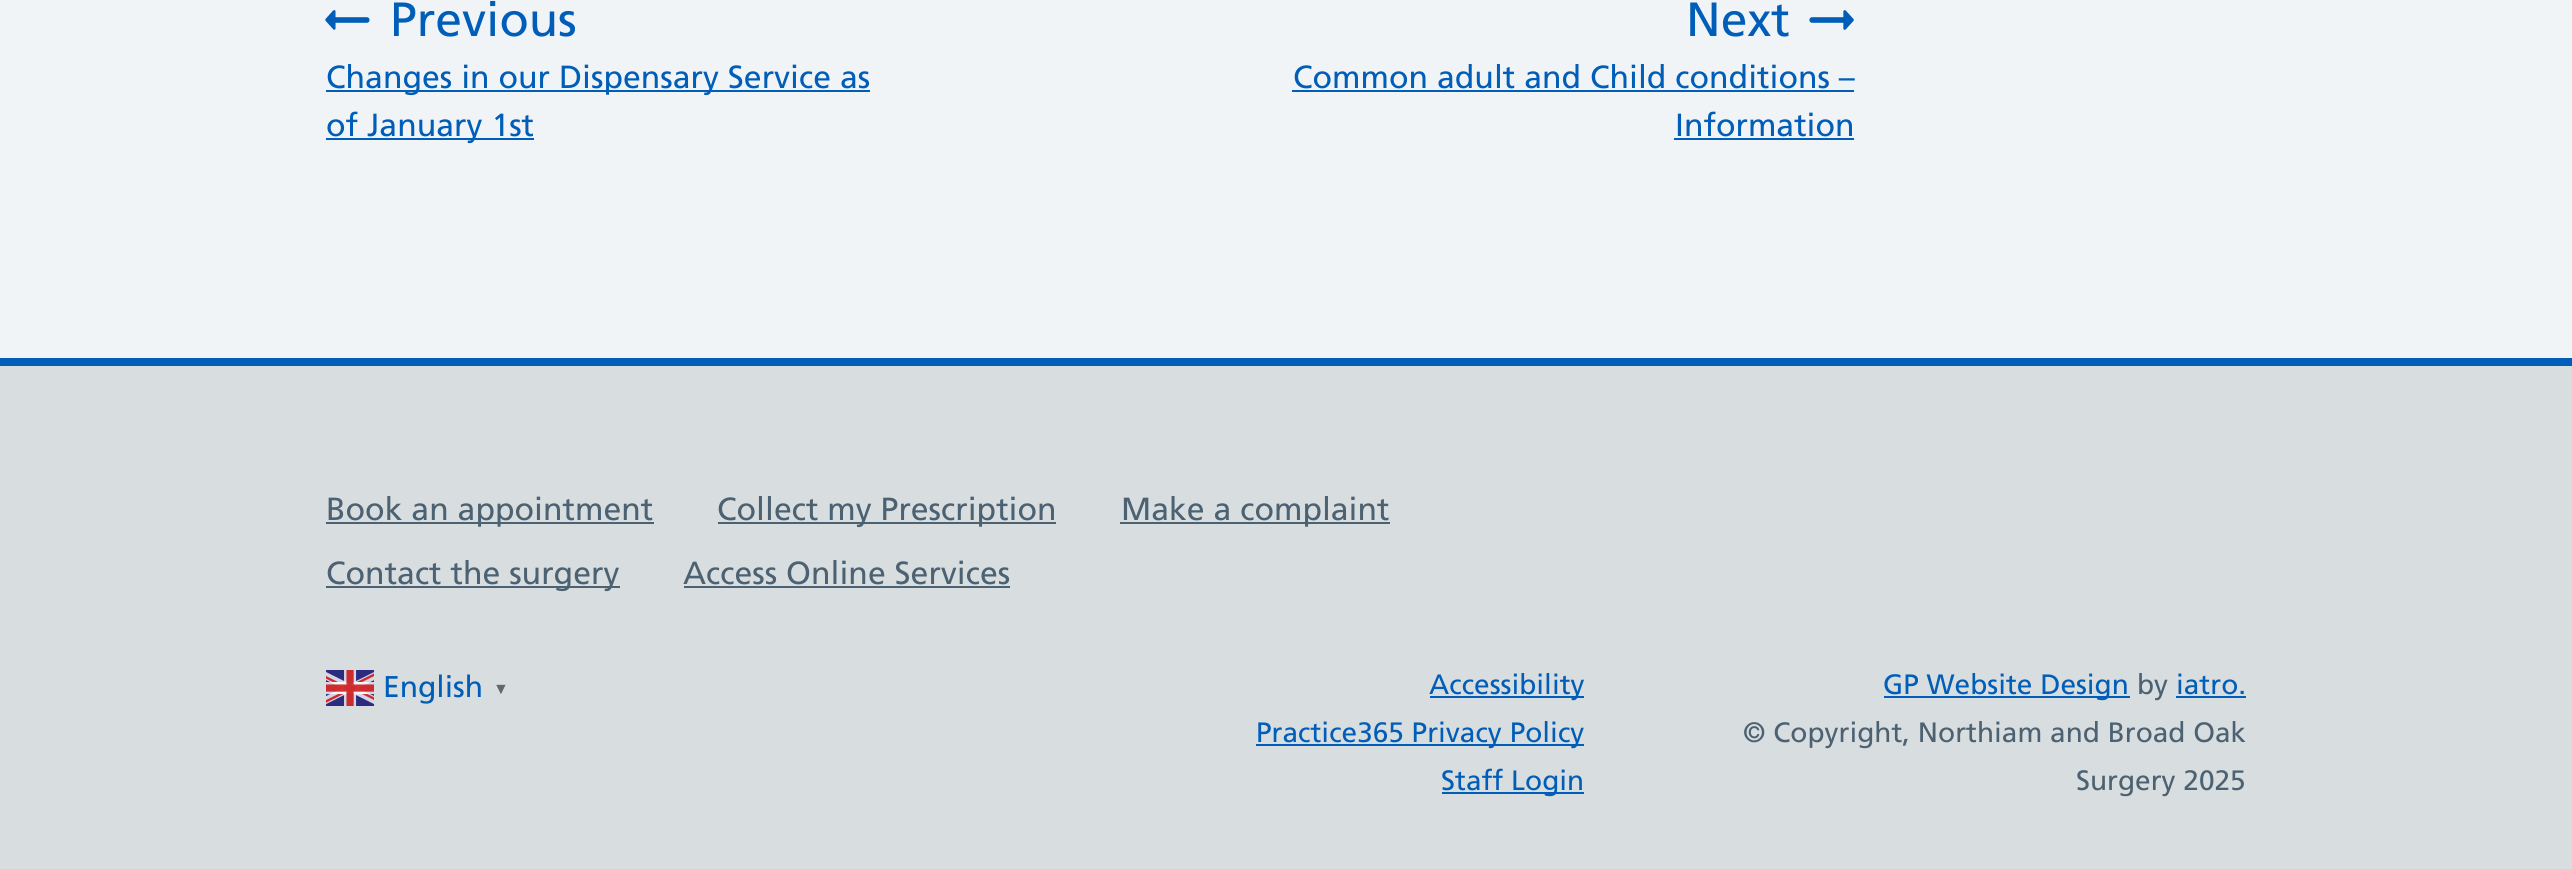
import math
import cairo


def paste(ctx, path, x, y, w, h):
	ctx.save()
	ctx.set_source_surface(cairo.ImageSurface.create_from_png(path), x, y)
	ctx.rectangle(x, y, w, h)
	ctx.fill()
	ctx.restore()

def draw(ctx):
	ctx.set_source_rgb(0.941, 0.957, 0.961)
	ctx.paint()
	paste(ctx, 'media/1.png', 325, 10, 45, 20)
	ctx.select_font_face('Frutiger')
	ctx.set_font_size(48)
	ctx.set_source_rgb(0, 0.369, 0.722)
	ctx.move_to(390, 36)
	ctx.show_text('Previous')
	ctx.rectangle(326, 90, 544, 2)
	ctx.fill()
	ctx.set_font_size(32)
	ctx.move_to(326, 88)
	ctx.show_text('Changes in our Dispensary Service as')
	ctx.rectangle(326, 138, 208, 2)
	ctx.fill()
	ctx.move_to(326, 136)
	ctx.show_text('of January 1st')
	ctx.set_font_size(48)
	ctx.move_to(1686, 36)
	ctx.show_text('Next')
	paste(ctx, 'media/2.png', 1809, 10, 45, 20)
	ctx.set_font_size(32)
	ctx.move_to(1293, 88)
	ctx.show_text('Common adult and Child conditions –')
	ctx.rectangle(1292, 90, 562, 2)
	ctx.fill()
	ctx.move_to(1675, 136)
	ctx.show_text('Information')
	ctx.rectangle(1674, 138, 180, 2)
	ctx.fill()
	ctx.set_source_rgb(0.847, 0.867, 0.878)
	ctx.rectangle(0, 366, 2572, 503)
	ctx.fill()
	ctx.set_source_rgb(0, 0.369, 0.722)
	ctx.rectangle(0, 358, 2572, 8)
	ctx.fill()
	ctx.set_source_rgb(0.298, 0.384, 0.447)
	ctx.rectangle(326, 522, 328, 2)
	ctx.fill()
	ctx.move_to(326, 520)
	ctx.show_text('Book an appointment')
	ctx.rectangle(718, 522, 338, 2)
	ctx.fill()
	ctx.move_to(717, 520)
	ctx.show_text('Collect my Prescription')
	ctx.rectangle(1120, 522, 270, 2)
	ctx.fill()
	ctx.move_to(1121, 520)
	ctx.show_text('Make a complaint')
	ctx.rectangle(326, 586, 294, 2)
	ctx.fill()
	ctx.move_to(326, 584)
	ctx.show_text('Contact the surgery')
	ctx.move_to(683, 584)
	ctx.show_text('Access Online Services')
	ctx.rectangle(684, 586, 326, 2)
	ctx.fill()
	paste(ctx, 'media/3.png', 326, 670, 48, 36)
	ctx.set_font_size(30)
	ctx.set_source_rgb(0, 0.369, 0.722)
	ctx.move_to(383, 697)
	ctx.show_text('English')
	ctx.select_font_face('Liberation Sans', cairo.FONT_SLANT_NORMAL, cairo.FONT_WEIGHT_BOLD)
	ctx.set_font_size(16)
	ctx.set_source_rgb(0.4, 0.4, 0.4)
	ctx.move_to(493, 694)
	ctx.show_text('▼')
	ctx.set_source_rgb(0, 0.369, 0.722)
	ctx.rectangle(1430, 696, 154, 2)
	ctx.fill()
	ctx.select_font_face('Frutiger')
	ctx.set_font_size(28)
	ctx.move_to(1429, 694)
	ctx.show_text('Accessibility')
	ctx.rectangle(1256, 744, 328, 2)
	ctx.fill()
	ctx.move_to(1256, 742)
	ctx.show_text('Practice365 Privacy Policy')
	ctx.rectangle(1442, 792, 142, 2)
	ctx.fill()
	ctx.move_to(1441, 790)
	ctx.show_text('Staff Login')
	ctx.rectangle(1884, 696, 246, 2)
	ctx.fill()
	ctx.move_to(1883, 694)
	ctx.show_text('GP Website Design')
	ctx.set_source_rgb(0.298, 0.384, 0.447)
	ctx.move_to(2137, 694)
	ctx.show_text('by')
	ctx.set_source_rgb(0, 0.369, 0.722)
	ctx.move_to(2176, 694)
	ctx.show_text('iatro.')
	ctx.rectangle(2176, 696, 70, 2)
	ctx.fill()
	ctx.set_source_rgb(0.298, 0.384, 0.447)
	ctx.move_to(1743, 742)
	ctx.show_text('© Copyright, Northiam and Broad Oak')
	ctx.move_to(2076, 790)
	ctx.show_text('Surgery 2025')


surface = cairo.ImageSurface(cairo.FORMAT_RGB24, 2572, 869)
ctx = cairo.Context(surface)
options = cairo.FontOptions()
options.set_hint_metrics(cairo.HINT_METRICS_OFF)
options.set_hint_style(cairo.HINT_STYLE_NONE)
ctx.set_font_options(options)
ctx.set_miter_limit(4)
draw(ctx)
surface.write_to_png('image.png')
